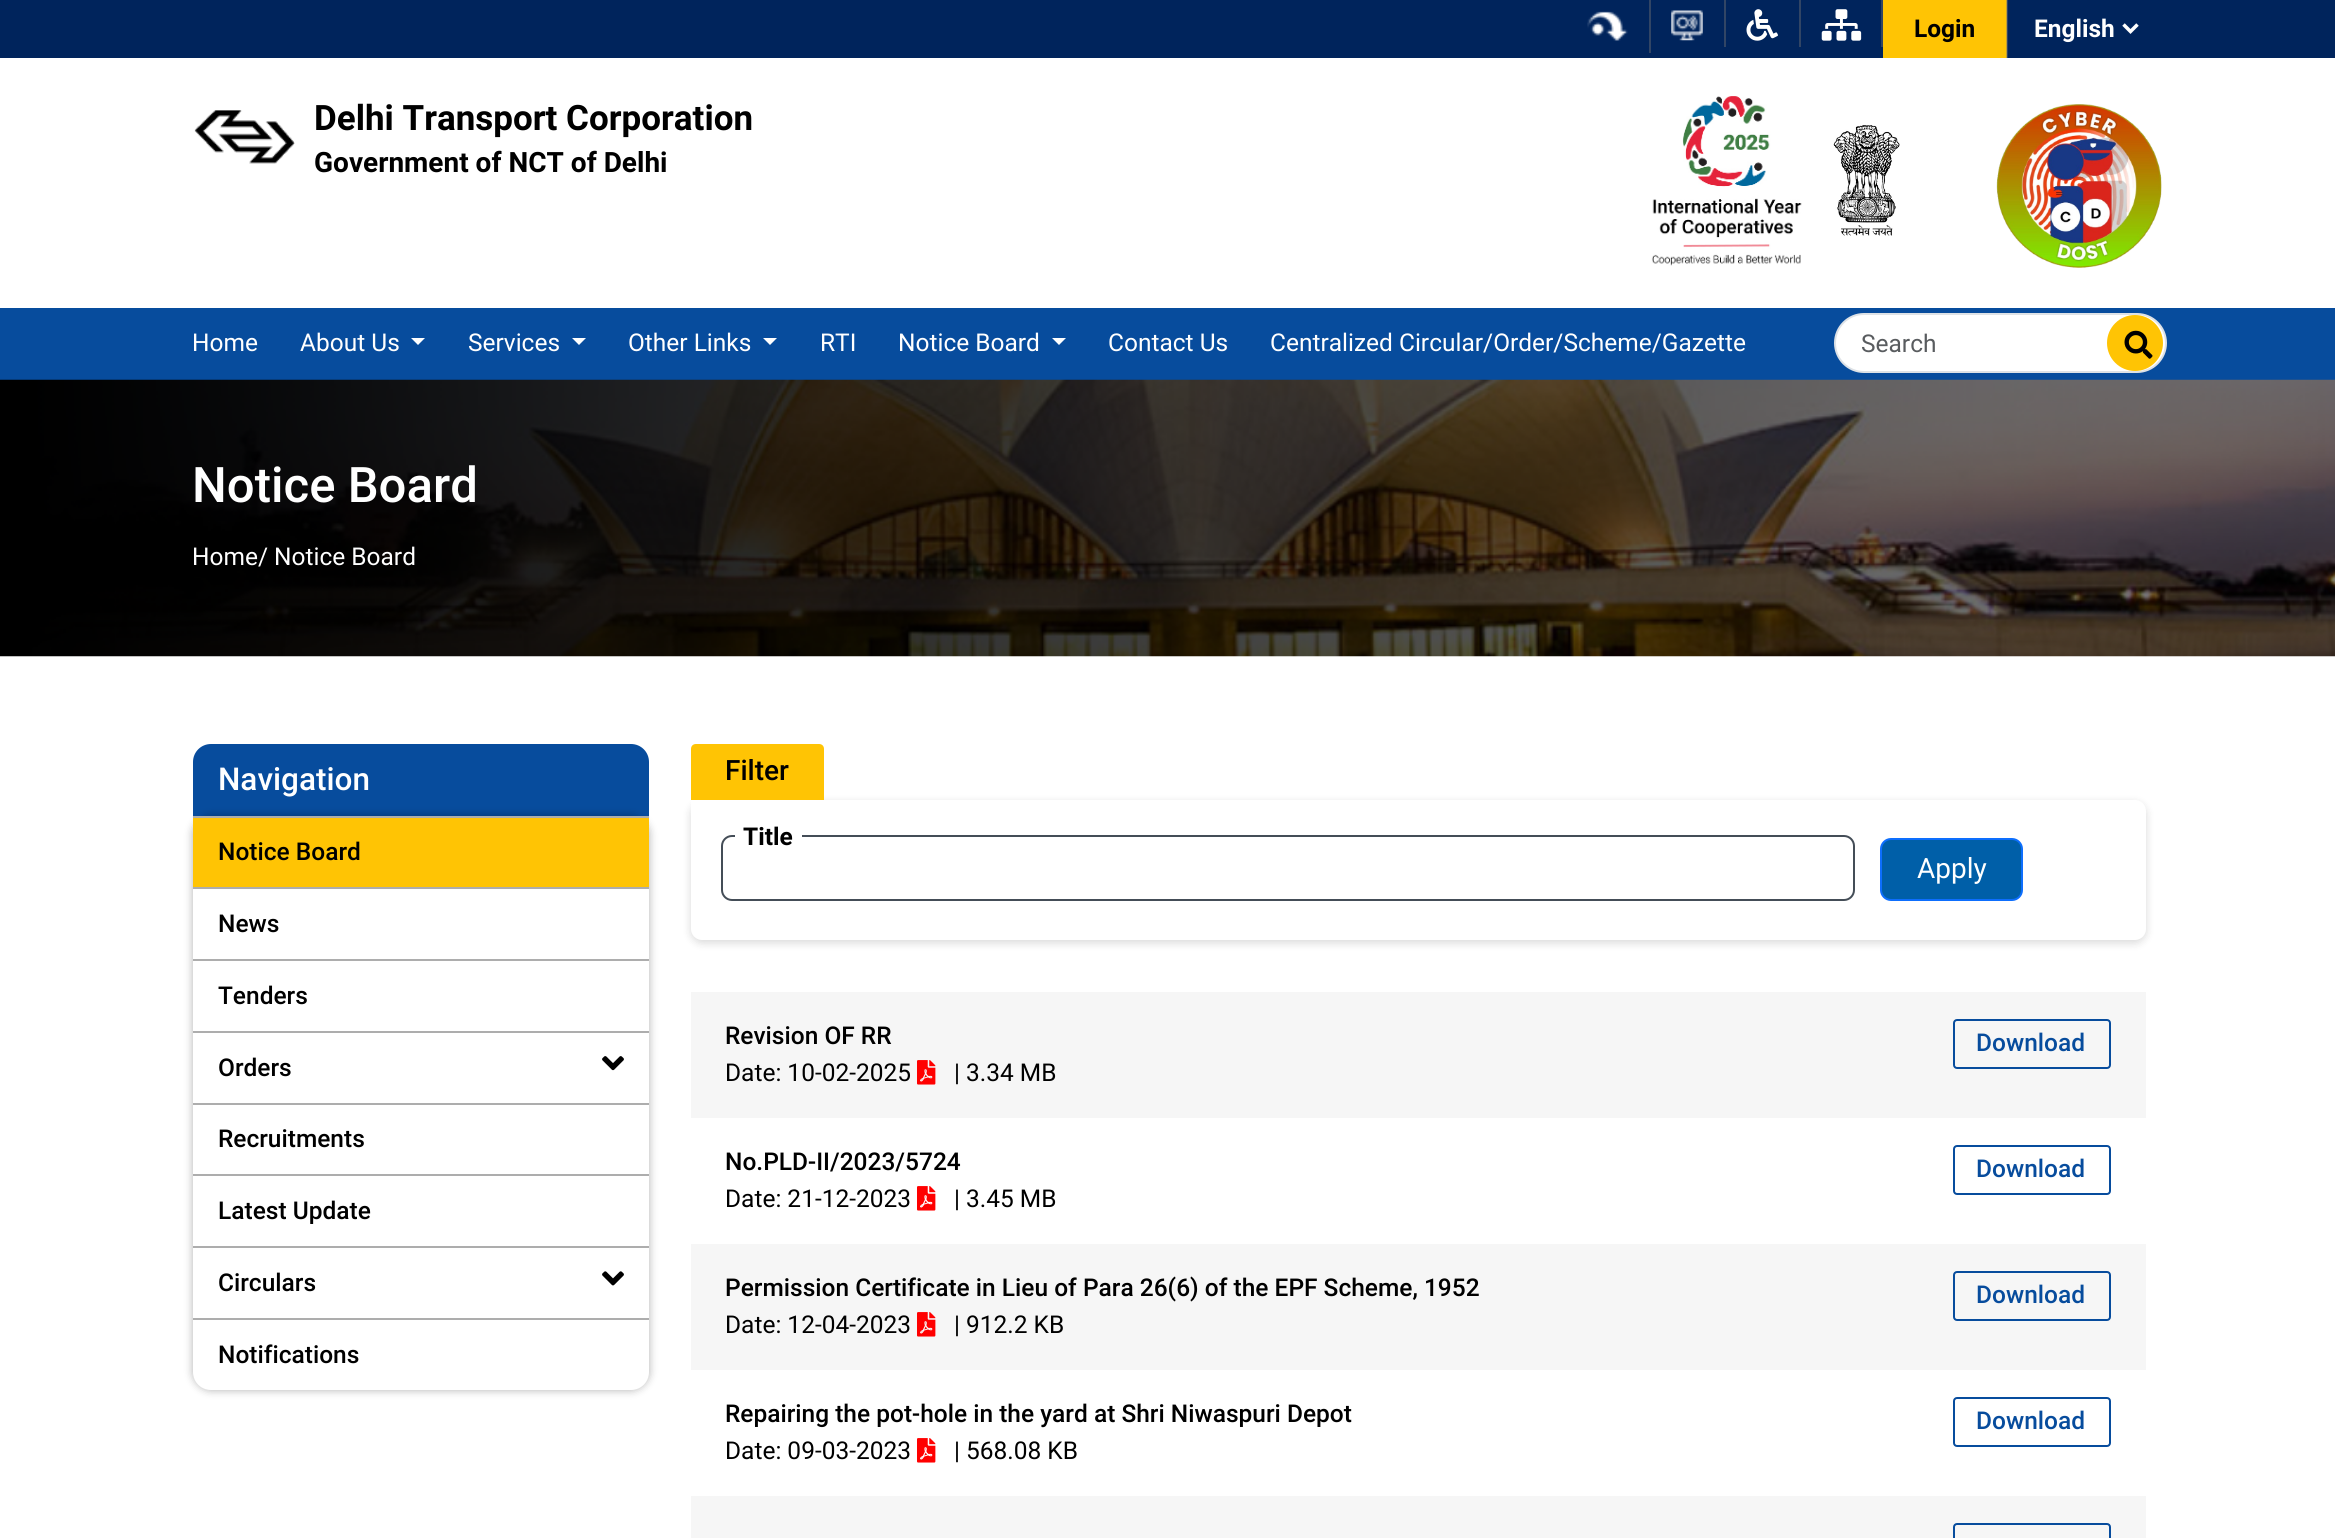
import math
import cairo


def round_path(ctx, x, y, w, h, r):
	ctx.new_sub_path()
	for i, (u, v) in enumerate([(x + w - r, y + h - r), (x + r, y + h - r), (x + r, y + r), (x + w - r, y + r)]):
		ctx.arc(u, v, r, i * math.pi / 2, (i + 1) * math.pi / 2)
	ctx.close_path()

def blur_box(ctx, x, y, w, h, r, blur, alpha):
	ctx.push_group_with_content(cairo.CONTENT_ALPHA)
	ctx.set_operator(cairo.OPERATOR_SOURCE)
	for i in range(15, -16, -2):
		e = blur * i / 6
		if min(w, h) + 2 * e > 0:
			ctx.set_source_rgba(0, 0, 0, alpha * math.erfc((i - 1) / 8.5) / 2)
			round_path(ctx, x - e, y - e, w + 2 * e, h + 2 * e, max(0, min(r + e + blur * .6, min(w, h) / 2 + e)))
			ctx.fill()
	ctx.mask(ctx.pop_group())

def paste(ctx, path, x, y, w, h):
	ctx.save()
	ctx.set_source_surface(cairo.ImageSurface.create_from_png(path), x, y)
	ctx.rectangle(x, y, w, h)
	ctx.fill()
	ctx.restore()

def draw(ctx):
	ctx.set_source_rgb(1, 1, 1)
	ctx.paint()
	ctx.set_source_rgb(0, 0.141, 0.361)
	ctx.rectangle(0, 0, 2335, 58)
	ctx.fill()
	ctx.set_source_rgb(0.192, 0.271, 0.396)
	ctx.rectangle(2007, 0, 1, 58)
	ctx.rectangle(1649, 0, 2, 53)
	ctx.fill()
	paste(ctx, 'media/1.png', 1587, 11, 41, 30)
	ctx.rectangle(1724, 0, 2, 47)
	ctx.fill()
	paste(ctx, 'media/2.png', 1671, 10, 32, 31)
	ctx.rectangle(1799, 0, 2, 47)
	ctx.fill()
	paste(ctx, 'media/3.png', 1746, 9, 32, 32)
	ctx.rectangle(1881, 0, 2, 47)
	ctx.fill()
	paste(ctx, 'media/4.png', 1821, 9, 41, 32)
	ctx.set_source_rgb(1, 0.769, 0.016)
	ctx.rectangle(1883, 0, 123, 58)
	ctx.fill()
	ctx.set_source_rgb(0.753, 0.624, 0.204)
	ctx.rectangle(2006, 0, 1, 58)
	ctx.fill()
	ctx.select_font_face('Roboto', cairo.FONT_SLANT_NORMAL, cairo.FONT_WEIGHT_BOLD)
	ctx.set_font_size(24.5)
	ctx.set_source_rgb(0, 0, 0)
	ctx.move_to(1914, 37)
	ctx.show_text('Login')
	ctx.new_path()
	ctx.move_to(2123.5, 24.5)
	ctx.line_to(2130.5, 31.5)
	ctx.line_to(2137.5, 24.5)
	ctx.set_source_rgb(1, 1, 1)
	ctx.set_line_width(3.5)
	ctx.stroke()
	ctx.move_to(2034, 37)
	ctx.show_text('English')
	paste(ctx, 'media/5.png', 194, 110, 101, 54)
	ctx.set_font_size(35)
	ctx.set_source_rgb(0, 0, 0)
	ctx.move_to(314, 130)
	ctx.show_text('Delhi Transport Corporation')
	ctx.set_font_size(28)
	ctx.move_to(314, 172)
	ctx.show_text('Government of NCT of Delhi')
	paste(ctx, 'media/6.png', 1651, 96, 151, 170)
	paste(ctx, 'media/7.png', 1833, 125, 67, 111)
	paste(ctx, 'media/8.png', 1996, 104, 166, 164)
	ctx.set_source_rgb(0.031, 0.298, 0.616)
	ctx.rectangle(0, 308, 2335, 72)
	ctx.fill()
	ctx.select_font_face('Roboto')
	ctx.set_font_size(24.5)
	ctx.set_source_rgb(1, 1, 1)
	ctx.move_to(192, 351)
	ctx.show_text('Home')
	ctx.move_to(300, 351)
	ctx.show_text('About Us')
	ctx.new_path()
	ctx.move_to(411, 338)
	ctx.line_to(425, 338)
	ctx.line_to(418, 345)
	ctx.close_path()
	ctx.fill()
	ctx.move_to(468, 351)
	ctx.show_text('Services')
	ctx.new_path()
	ctx.move_to(572, 338)
	ctx.line_to(586, 338)
	ctx.line_to(579, 345)
	ctx.close_path()
	ctx.fill()
	ctx.move_to(628, 351)
	ctx.show_text('Other Links')
	ctx.new_path()
	ctx.move_to(763, 338)
	ctx.line_to(777, 338)
	ctx.line_to(770, 345)
	ctx.close_path()
	ctx.fill()
	ctx.move_to(820, 351)
	ctx.show_text('RTI')
	ctx.move_to(898, 351)
	ctx.show_text('Notice Board')
	ctx.new_path()
	ctx.move_to(1052, 338)
	ctx.line_to(1066, 338)
	ctx.line_to(1059, 345)
	ctx.close_path()
	ctx.fill()
	ctx.move_to(1108, 351)
	ctx.show_text('Contact Us')
	ctx.move_to(1270, 351)
	ctx.show_text('Centralized Circular/Order/Scheme/Gazette')
	round_path(ctx, 1835, 314, 331, 58, 29)
	ctx.fill_preserve()
	ctx.set_source_rgb(0.871, 0.886, 0.902)
	ctx.set_line_width(2)
	ctx.stroke()
	ctx.set_source_rgb(0.349, 0.361, 0.373)
	ctx.move_to(1861, 352)
	ctx.show_text('Search')
	ctx.set_source_rgb(1, 0.769, 0.016)
	ctx.new_path()
	ctx.arc(2135, 343, 28, 0, 2 * math.pi)
	ctx.fill()
	paste(ctx, 'media/9.png', 2124, 330, 29, 29)
	paste(ctx, 'media/10.png', 0, 379, 2335, 278)
	ctx.select_font_face('Roboto Medium')
	ctx.set_font_size(49)
	ctx.set_source_rgb(1, 1, 1)
	ctx.move_to(192, 502)
	ctx.show_text('Notice Board')
	ctx.select_font_face('Roboto')
	ctx.set_font_size(24.5)
	ctx.move_to(192, 565)
	ctx.show_text('Home/ Notice Board')
	ctx.set_source_rgb(0.031, 0.298, 0.616)
	ctx.new_path()
	ctx.move_to(211, 744)
	ctx.line_to(631, 744)
	ctx.curve_to(641, 744, 649, 752, 649, 762)
	ctx.line_to(649, 816)
	ctx.line_to(193, 816)
	ctx.line_to(193, 762)
	ctx.curve_to(193, 752, 201, 744, 211, 744)
	ctx.close_path()
	ctx.fill()
	ctx.select_font_face('Roboto Medium')
	ctx.set_font_size(31.5)
	ctx.set_source_rgb(1, 1, 1)
	ctx.move_to(218, 790)
	ctx.show_text('Navigation')
	ctx.set_source_rgb(0, 0, 0)
	blur_box(ctx, 193, 816, 456, 574, 18, 4.5, 0.31)
	ctx.set_source_rgb(1, 1, 1)
	ctx.new_path()
	ctx.move_to(193, 816)
	ctx.line_to(649, 816)
	ctx.line_to(649, 1372)
	ctx.curve_to(649, 1382, 641, 1390, 631, 1390)
	ctx.line_to(211, 1390)
	ctx.curve_to(201, 1390, 193, 1382, 193, 1372)
	ctx.close_path()
	ctx.fill()
	ctx.set_source_rgb(1, 0.769, 0.016)
	ctx.rectangle(193, 818, 456, 69)
	ctx.fill()
	ctx.set_source_rgb(0.678, 0.678, 0.678)
	ctx.rectangle(193, 816, 456, 2)
	ctx.fill()
	ctx.set_font_size(24.5)
	ctx.set_source_rgb(0, 0, 0)
	ctx.move_to(218, 860)
	ctx.show_text('Notice Board')
	ctx.set_source_rgb(0.678, 0.678, 0.678)
	ctx.rectangle(193, 887, 456, 2)
	ctx.fill()
	ctx.set_source_rgb(0, 0, 0)
	ctx.move_to(218, 932)
	ctx.show_text('News')
	ctx.set_source_rgb(0.678, 0.678, 0.678)
	ctx.rectangle(193, 959, 456, 2)
	ctx.fill()
	ctx.set_source_rgb(0, 0, 0)
	ctx.move_to(218, 1004)
	ctx.show_text('Tenders')
	ctx.set_source_rgb(0.678, 0.678, 0.678)
	ctx.rectangle(193, 1031, 456, 2)
	ctx.fill()
	ctx.set_source_rgb(0, 0, 0)
	ctx.move_to(218, 1076)
	ctx.show_text('Orders')
	paste(ctx, 'media/11.png', 602, 1056, 22, 15)
	ctx.set_source_rgb(0.678, 0.678, 0.678)
	ctx.rectangle(193, 1103, 456, 2)
	ctx.fill()
	ctx.set_source_rgb(0, 0, 0)
	ctx.move_to(218, 1147)
	ctx.show_text('Recruitments')
	ctx.set_source_rgb(0.678, 0.678, 0.678)
	ctx.rectangle(193, 1174, 456, 2)
	ctx.fill()
	ctx.set_source_rgb(0, 0, 0)
	ctx.move_to(218, 1219)
	ctx.show_text('Latest Update')
	ctx.set_source_rgb(0.678, 0.678, 0.678)
	ctx.rectangle(193, 1246, 456, 2)
	ctx.fill()
	ctx.set_source_rgb(0, 0, 0)
	ctx.move_to(218, 1291)
	ctx.show_text('Circulars')
	paste(ctx, 'media/12.png', 602, 1271, 22, 15)
	ctx.set_source_rgb(0.678, 0.678, 0.678)
	ctx.rectangle(193, 1318, 456, 2)
	ctx.fill()
	ctx.set_source_rgb(0, 0, 0)
	ctx.move_to(218, 1363)
	ctx.show_text('Notifications')
	ctx.set_source_rgb(0, 0, 0)
	blur_box(ctx, 691, 803, 1455, 140, 11, 4.5, 0.15)
	ctx.set_source_rgb(1, 0.769, 0.016)
	ctx.new_path()
	ctx.move_to(696, 744)
	ctx.line_to(819, 744)
	ctx.curve_to(822, 744, 824, 746, 824, 749)
	ctx.line_to(824, 800)
	ctx.line_to(691, 800)
	ctx.line_to(691, 749)
	ctx.curve_to(691, 746, 693, 744, 696, 744)
	ctx.close_path()
	ctx.fill()
	ctx.set_font_size(28)
	ctx.set_source_rgb(0, 0, 0)
	ctx.move_to(725, 780)
	ctx.show_text('Filter')
	ctx.set_source_rgb(1, 1, 1)
	ctx.new_path()
	ctx.move_to(691, 800)
	ctx.line_to(2135, 800)
	ctx.curve_to(2141, 800, 2146, 805, 2146, 811)
	ctx.line_to(2146, 929)
	ctx.curve_to(2146, 935, 2141, 940, 2135, 940)
	ctx.line_to(702, 940)
	ctx.curve_to(696, 940, 691, 935, 691, 929)
	ctx.close_path()
	ctx.fill()
	round_path(ctx, 722, 836, 1132, 64, 10)
	ctx.set_source_rgb(0.267, 0.302, 0.341)
	ctx.stroke()
	ctx.set_source_rgb(1, 1, 1)
	ctx.rectangle(735, 835, 67, 2)
	ctx.fill()
	ctx.select_font_face('Roboto', cairo.FONT_SLANT_NORMAL, cairo.FONT_WEIGHT_BOLD)
	ctx.set_font_size(24.5)
	ctx.set_source_rgb(0, 0, 0)
	ctx.move_to(743, 845)
	ctx.show_text('Title')
	ctx.set_source_rgb(0, 0.373, 0.659)
	round_path(ctx, 1881, 839, 141, 61, 10)
	ctx.fill_preserve()
	ctx.set_source_rgb(0.051, 0.431, 0.992)
	ctx.stroke()
	ctx.select_font_face('Roboto')
	ctx.set_font_size(28)
	ctx.set_source_rgb(1, 1, 1)
	ctx.move_to(1917, 878)
	ctx.show_text('Apply')
	ctx.set_source_rgb(0.961, 0.961, 0.961)
	ctx.rectangle(691, 992, 1455, 126)
	ctx.fill()
	ctx.select_font_face('Roboto Medium')
	ctx.set_font_size(24.5)
	ctx.set_source_rgb(0, 0, 0)
	ctx.move_to(725, 1044)
	ctx.show_text('Revision OF RR')
	ctx.select_font_face('Roboto')
	ctx.move_to(725, 1081)
	ctx.show_text('Date: 10-02-2025')
	paste(ctx, 'media/13.png', 917, 1060, 19, 25)
	ctx.move_to(954, 1081)
	ctx.show_text('| 3.34 MB')
	round_path(ctx, 1954, 1020, 156, 48, 3)
	ctx.set_source_rgb(0.031, 0.298, 0.616)
	ctx.stroke()
	ctx.select_font_face('Roboto Medium')
	ctx.move_to(1976, 1051)
	ctx.show_text('Download')
	ctx.set_source_rgb(0, 0, 0)
	ctx.move_to(725, 1170)
	ctx.show_text('No.PLD-II/2023/5724')
	ctx.select_font_face('Roboto')
	ctx.move_to(725, 1207)
	ctx.show_text('Date: 21-12-2023')
	paste(ctx, 'media/14.png', 917, 1186, 19, 25)
	ctx.move_to(954, 1207)
	ctx.show_text('| 3.45 MB')
	round_path(ctx, 1954, 1146, 156, 48, 3)
	ctx.set_source_rgb(0.031, 0.298, 0.616)
	ctx.stroke()
	ctx.select_font_face('Roboto Medium')
	ctx.move_to(1976, 1177)
	ctx.show_text('Download')
	ctx.set_source_rgb(0.961, 0.961, 0.961)
	ctx.rectangle(691, 1244, 1455, 126)
	ctx.fill()
	ctx.set_source_rgb(0, 0, 0)
	ctx.move_to(725, 1296)
	ctx.show_text('Permission Certificate in Lieu of Para 26(6) of the EPF Scheme, 1952')
	ctx.select_font_face('Roboto')
	ctx.move_to(725, 1333)
	ctx.show_text('Date: 12-04-2023')
	paste(ctx, 'media/13.png', 917, 1312, 19, 25)
	ctx.move_to(954, 1333)
	ctx.show_text('| 912.2 KB')
	round_path(ctx, 1954, 1272, 156, 48, 3)
	ctx.set_source_rgb(0.031, 0.298, 0.616)
	ctx.stroke()
	ctx.select_font_face('Roboto Medium')
	ctx.move_to(1976, 1303)
	ctx.show_text('Download')
	ctx.set_source_rgb(0, 0, 0)
	ctx.move_to(725, 1422)
	ctx.show_text('Repairing the pot-hole in the yard at Shri Niwaspuri Depot')
	ctx.select_font_face('Roboto')
	ctx.move_to(725, 1459)
	ctx.show_text('Date: 09-03-2023')
	paste(ctx, 'media/14.png', 917, 1438, 19, 25)
	ctx.move_to(954, 1459)
	ctx.show_text('| 568.08 KB')
	round_path(ctx, 1954, 1398, 156, 48, 3)
	ctx.set_source_rgb(0.031, 0.298, 0.616)
	ctx.stroke()
	ctx.select_font_face('Roboto Medium')
	ctx.move_to(1976, 1429)
	ctx.show_text('Download')
	ctx.set_source_rgb(0.961, 0.961, 0.961)
	ctx.rectangle(691, 1496, 1455, 42)
	ctx.fill()
	round_path(ctx, 1954, 1524, 156, 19, 3)
	ctx.set_source_rgb(0.031, 0.298, 0.616)
	ctx.stroke()


surface = cairo.ImageSurface(cairo.FORMAT_RGB24, 2335, 1538)
ctx = cairo.Context(surface)
options = cairo.FontOptions()
options.set_hint_metrics(cairo.HINT_METRICS_OFF)
options.set_hint_style(cairo.HINT_STYLE_NONE)
ctx.set_font_options(options)
ctx.set_miter_limit(4)
draw(ctx)
surface.write_to_png('image.png')
